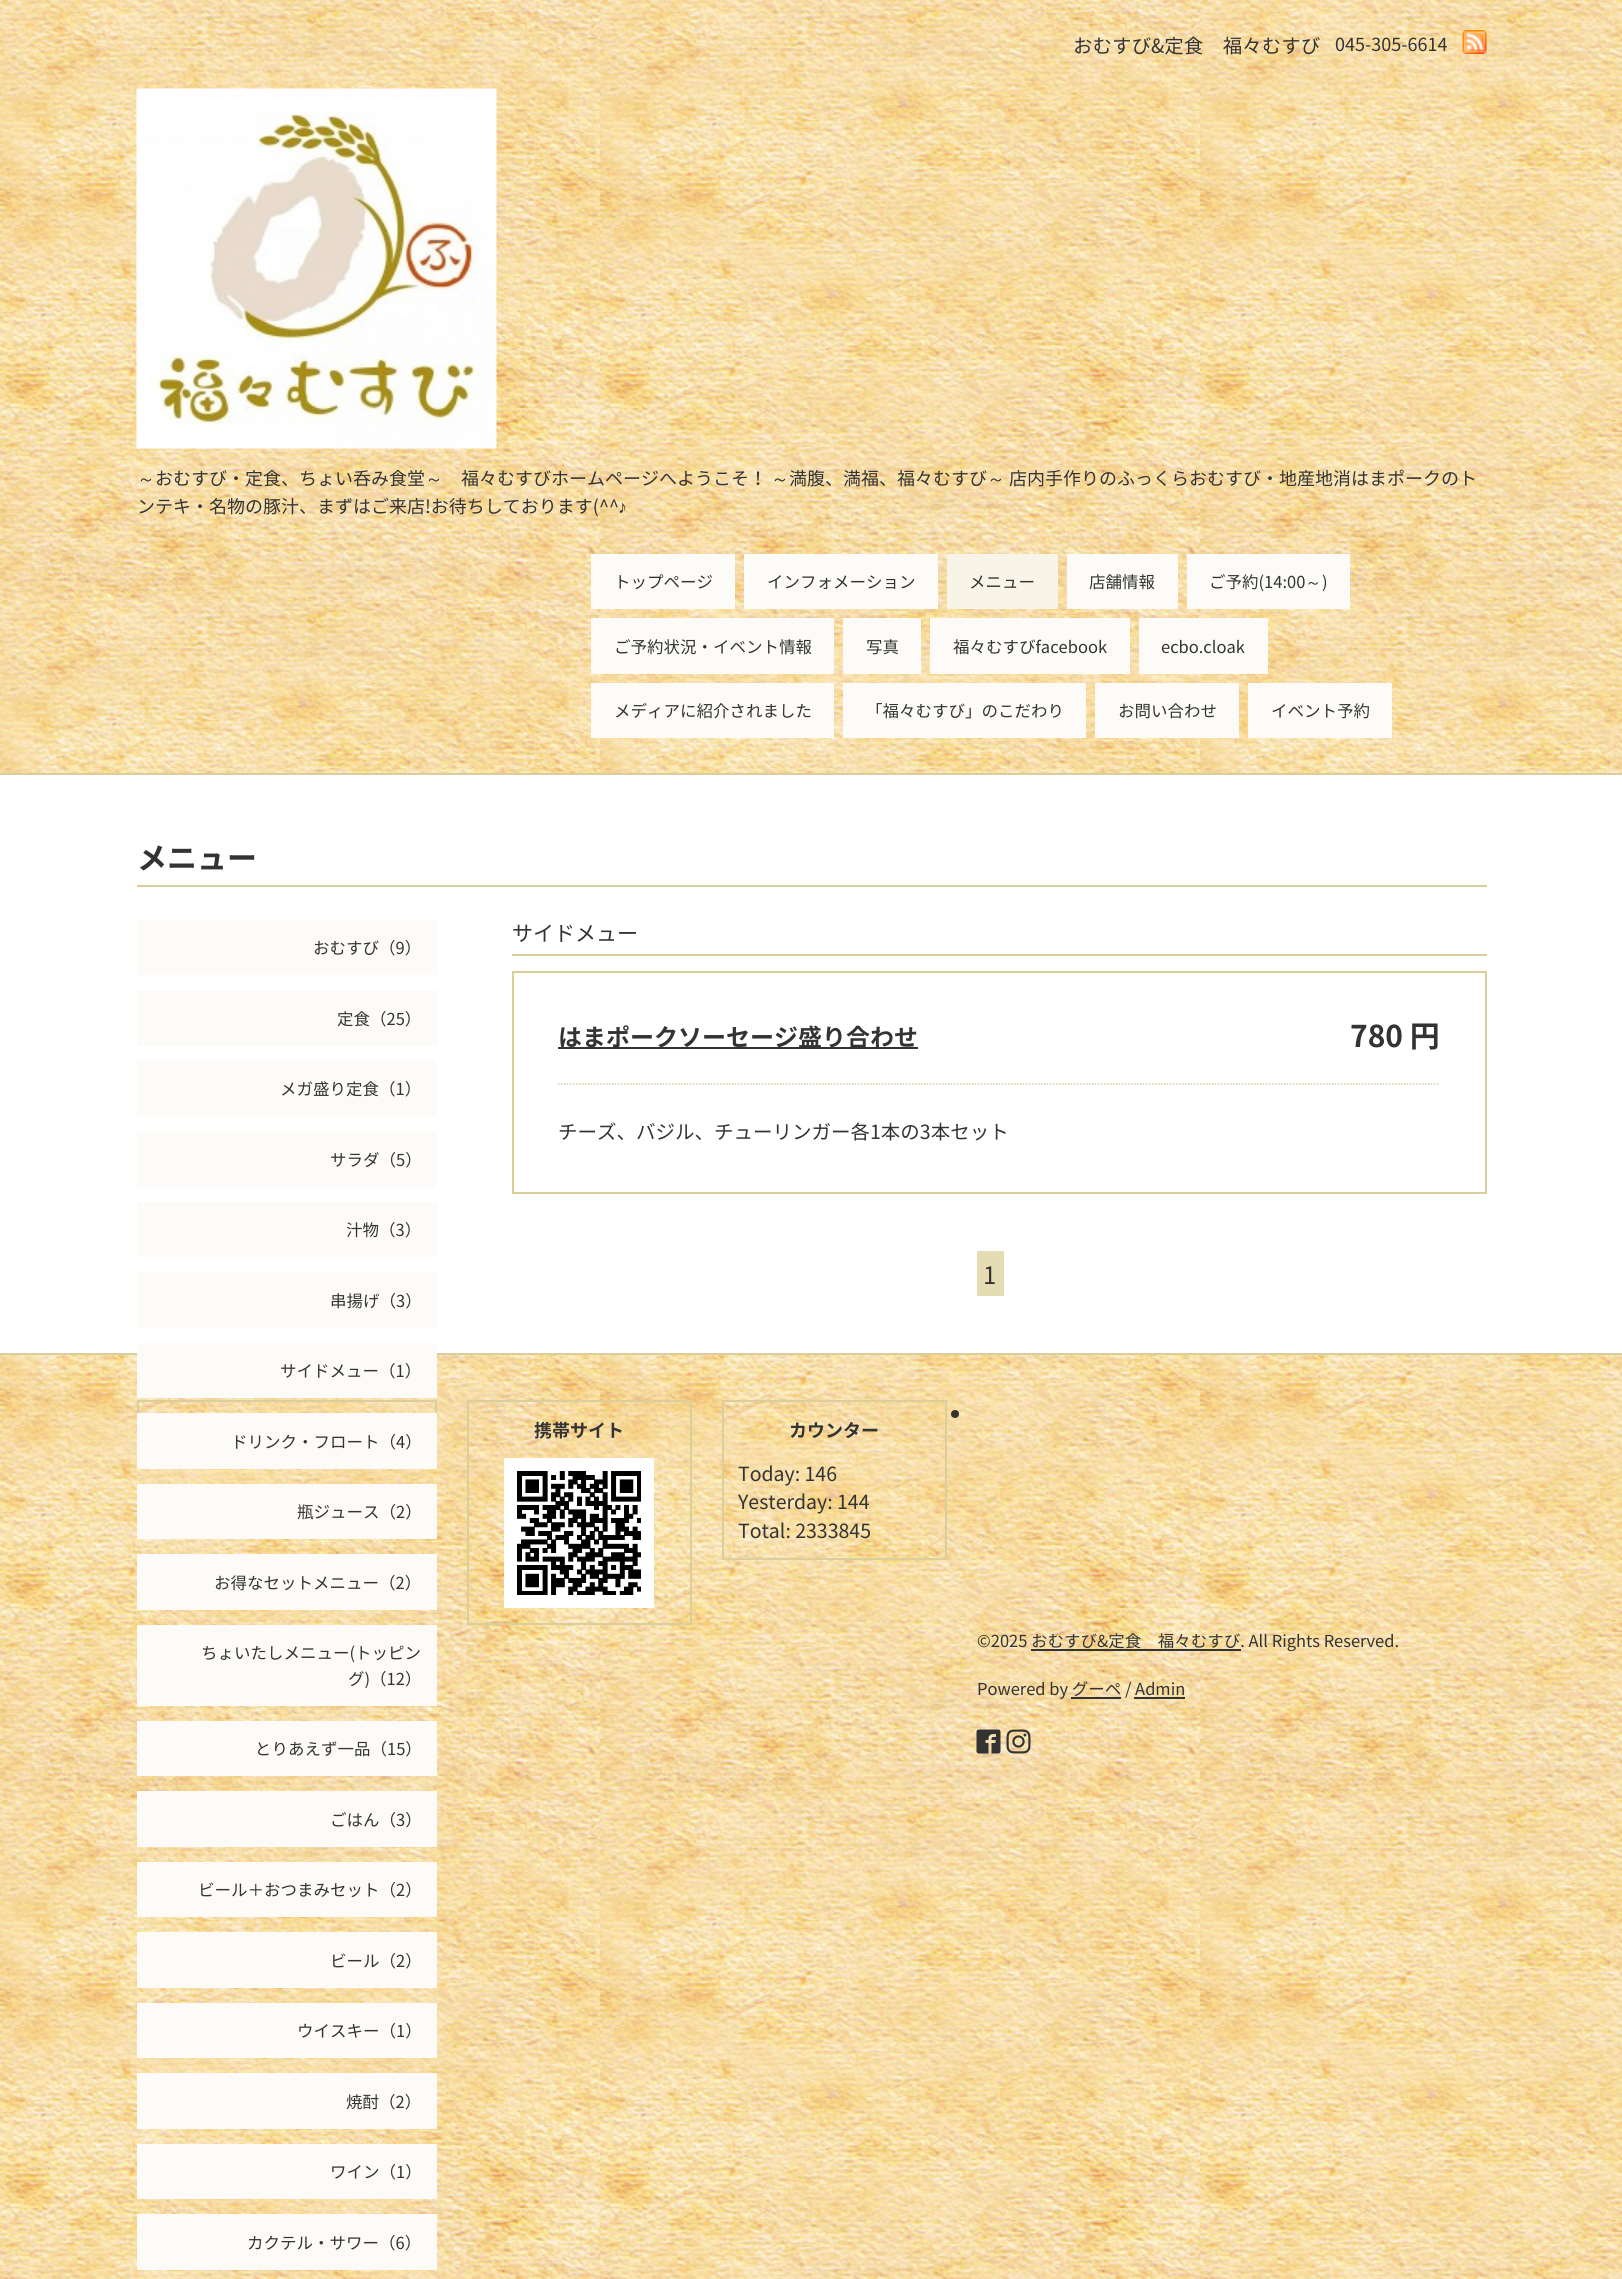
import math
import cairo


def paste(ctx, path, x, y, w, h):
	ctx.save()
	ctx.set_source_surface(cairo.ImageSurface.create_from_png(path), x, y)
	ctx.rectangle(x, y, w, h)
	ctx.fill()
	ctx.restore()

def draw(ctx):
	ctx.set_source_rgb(1, 1, 1)
	ctx.paint()
	paste(ctx, 'media/1.png', 0, 0, 1622, 2279)
	ctx.select_font_face('Noto Sans JP')
	ctx.set_font_size(19.5)
	ctx.set_source_rgb(0.2, 0.2, 0.2)
	ctx.move_to(1073, 53)
	ctx.show_text('おむすび&定食　福々むすび')
	ctx.set_font_size(18)
	ctx.move_to(1335, 51)
	ctx.show_text('045-305-6614')
	paste(ctx, 'media/2.png', 1462, 30, 25, 24)
	paste(ctx, 'media/3.png', 136, 88, 361, 361)
	ctx.select_font_face('WenQuanYi Zen Hei Medium')
	ctx.move_to(137, 485)
	ctx.show_text('～')
	ctx.select_font_face('Noto Sans JP')
	ctx.move_to(155, 485)
	ctx.show_text('おむすび・定食、ちょい呑み食堂')
	ctx.select_font_face('WenQuanYi Zen Hei Medium')
	ctx.move_to(425, 485)
	ctx.show_text('～')
	ctx.select_font_face('Noto Sans JP')
	ctx.move_to(461, 485)
	ctx.show_text('福々むすびホームページへようこそ！')
	ctx.select_font_face('WenQuanYi Zen Hei Medium')
	ctx.move_to(771, 485)
	ctx.show_text('～')
	ctx.select_font_face('Noto Sans JP')
	ctx.move_to(789, 485)
	ctx.show_text('満腹、満福、福々むすび')
	ctx.select_font_face('WenQuanYi Zen Hei Medium')
	ctx.move_to(987, 485)
	ctx.show_text('～')
	ctx.select_font_face('Noto Sans JP')
	ctx.move_to(1009, 485)
	ctx.show_text('店内手作りのふっくらおむすび・地産地消はまポークのト')
	ctx.move_to(137, 513)
	ctx.show_text('ンテキ・名物の豚汁、まずはご来店!お待ちしております(^^')
	ctx.select_font_face('Liberation Serif')
	ctx.move_to(618, 513)
	ctx.show_text('♪')
	ctx.set_source_rgb(0.992, 0.984, 0.969)
	ctx.rectangle(591, 554, 144, 55)
	ctx.fill()
	ctx.select_font_face('Noto Sans JP')
	ctx.set_font_size(16.5)
	ctx.set_source_rgb(0.2, 0.2, 0.2)
	ctx.move_to(614, 588)
	ctx.show_text('トップページ')
	ctx.set_source_rgb(0.992, 0.984, 0.969)
	ctx.rectangle(744, 554, 194, 55)
	ctx.fill()
	ctx.set_source_rgb(0.2, 0.2, 0.2)
	ctx.move_to(767, 588)
	ctx.show_text('インフォメーション')
	ctx.set_source_rgb(0.969, 0.957, 0.91)
	ctx.rectangle(947, 554, 111, 55)
	ctx.fill()
	ctx.set_source_rgb(0.2, 0.2, 0.2)
	ctx.move_to(969, 588)
	ctx.show_text('メニュー')
	ctx.set_source_rgb(0.992, 0.984, 0.969)
	ctx.rectangle(1067, 554, 111, 55)
	ctx.fill()
	ctx.set_source_rgb(0.2, 0.2, 0.2)
	ctx.move_to(1089, 588)
	ctx.show_text('店舗情報')
	ctx.set_source_rgb(0.992, 0.984, 0.969)
	ctx.rectangle(1187, 554, 163, 55)
	ctx.fill()
	ctx.set_source_rgb(0.2, 0.2, 0.2)
	ctx.move_to(1209, 588)
	ctx.show_text('ご予約(14:00')
	ctx.select_font_face('WenQuanYi Zen Hei Medium')
	ctx.move_to(1305, 588)
	ctx.show_text('～')
	ctx.select_font_face('Noto Sans JP')
	ctx.move_to(1322, 588)
	ctx.show_text(')')
	ctx.set_source_rgb(0.992, 0.984, 0.969)
	ctx.rectangle(591, 618, 243, 56)
	ctx.fill()
	ctx.set_source_rgb(0.2, 0.2, 0.2)
	ctx.move_to(614, 653)
	ctx.show_text('ご予約状況・イベント情報')
	ctx.set_source_rgb(0.992, 0.984, 0.969)
	ctx.rectangle(843, 618, 78, 56)
	ctx.fill()
	ctx.set_source_rgb(0.2, 0.2, 0.2)
	ctx.move_to(866, 653)
	ctx.show_text('写真')
	ctx.set_source_rgb(0.992, 0.984, 0.969)
	ctx.rectangle(930, 618, 200, 56)
	ctx.fill()
	ctx.set_source_rgb(0.2, 0.2, 0.2)
	ctx.move_to(953, 653)
	ctx.show_text('福々むすびfacebook')
	ctx.set_source_rgb(0.992, 0.984, 0.969)
	ctx.rectangle(1139, 618, 129, 56)
	ctx.fill()
	ctx.set_source_rgb(0.2, 0.2, 0.2)
	ctx.move_to(1161, 653)
	ctx.show_text('ecbo.cloak')
	ctx.set_source_rgb(0.992, 0.984, 0.969)
	ctx.rectangle(591, 683, 243, 55)
	ctx.fill()
	ctx.set_source_rgb(0.2, 0.2, 0.2)
	ctx.move_to(614, 717)
	ctx.show_text('メディアに紹介されました')
	ctx.set_source_rgb(0.992, 0.984, 0.969)
	ctx.rectangle(843, 683, 243, 55)
	ctx.fill()
	ctx.set_source_rgb(0.2, 0.2, 0.2)
	ctx.move_to(866, 717)
	ctx.show_text('「福々むすび」のこだわり')
	ctx.set_source_rgb(0.992, 0.984, 0.969)
	ctx.rectangle(1095, 683, 144, 55)
	ctx.fill()
	ctx.set_source_rgb(0.2, 0.2, 0.2)
	ctx.move_to(1118, 717)
	ctx.show_text('お問い合わせ')
	ctx.set_source_rgb(0.992, 0.984, 0.969)
	ctx.rectangle(1248, 683, 144, 55)
	ctx.fill()
	ctx.set_source_rgb(0.2, 0.2, 0.2)
	ctx.move_to(1271, 717)
	ctx.show_text('イベント予約')
	ctx.set_source_rgb(1, 1, 1)
	ctx.rectangle(0, 775, 1622, 578)
	ctx.fill()
	ctx.set_source_rgb(0.855, 0.812, 0.612)
	ctx.rectangle(0, 773, 1622, 2)
	ctx.rectangle(0, 1353, 1622, 2)
	ctx.rectangle(137, 885, 1350, 2)
	ctx.fill()
	ctx.select_font_face('Noto Sans JP', cairo.FONT_SLANT_NORMAL, cairo.FONT_WEIGHT_BOLD)
	ctx.set_font_size(30)
	ctx.set_source_rgb(0.2, 0.2, 0.2)
	ctx.move_to(137, 869)
	ctx.show_text('メニュー')
	ctx.set_source_rgb(0.992, 0.984, 0.969)
	ctx.rectangle(137, 920, 300, 55)
	ctx.fill()
	ctx.select_font_face('Noto Sans JP')
	ctx.set_font_size(16.5)
	ctx.set_source_rgb(0.2, 0.2, 0.2)
	ctx.move_to(313, 954)
	ctx.show_text('おむすび（9）')
	ctx.set_source_rgb(0.992, 0.984, 0.969)
	ctx.rectangle(137, 990, 300, 56)
	ctx.fill()
	ctx.set_source_rgb(0.2, 0.2, 0.2)
	ctx.move_to(337, 1025)
	ctx.show_text('定食（25）')
	ctx.set_source_rgb(0.992, 0.984, 0.969)
	ctx.rectangle(137, 1061, 300, 55)
	ctx.fill()
	ctx.set_source_rgb(0.2, 0.2, 0.2)
	ctx.move_to(280, 1095)
	ctx.show_text('メガ盛り定食（1）')
	ctx.set_source_rgb(0.992, 0.984, 0.969)
	ctx.rectangle(137, 1131, 300, 56)
	ctx.fill()
	ctx.set_source_rgb(0.2, 0.2, 0.2)
	ctx.move_to(330, 1166)
	ctx.show_text('サラダ（5）')
	ctx.set_source_rgb(0.992, 0.984, 0.969)
	ctx.rectangle(137, 1202, 300, 55)
	ctx.fill()
	ctx.set_source_rgb(0.2, 0.2, 0.2)
	ctx.move_to(346, 1236)
	ctx.show_text('汁物（3）')
	ctx.set_source_rgb(0.992, 0.984, 0.969)
	ctx.rectangle(137, 1272, 300, 56)
	ctx.fill()
	ctx.set_source_rgb(0.2, 0.2, 0.2)
	ctx.move_to(330, 1307)
	ctx.show_text('串揚げ（3）')
	ctx.set_source_rgb(0.992, 0.984, 0.969)
	ctx.rectangle(137, 1343, 300, 55)
	ctx.fill()
	ctx.set_source_rgb(0.2, 0.2, 0.2)
	ctx.move_to(280, 1377)
	ctx.show_text('サイドメュー（1）')
	ctx.rectangle(138, 1401, 298, 58)
	ctx.set_source_rgb(0.855, 0.812, 0.612)
	ctx.stroke()
	ctx.set_source_rgb(0.992, 0.984, 0.969)
	ctx.rectangle(137, 1413, 300, 56)
	ctx.fill()
	ctx.set_source_rgb(0.2, 0.2, 0.2)
	ctx.move_to(231, 1448)
	ctx.show_text('ドリンク・フロート（4）')
	ctx.set_source_rgb(0.992, 0.984, 0.969)
	ctx.rectangle(137, 1484, 300, 55)
	ctx.fill()
	ctx.set_source_rgb(0.2, 0.2, 0.2)
	ctx.move_to(297, 1518)
	ctx.show_text('瓶ジュース（2）')
	ctx.set_source_rgb(0.992, 0.984, 0.969)
	ctx.rectangle(137, 1554, 300, 56)
	ctx.fill()
	ctx.set_source_rgb(0.2, 0.2, 0.2)
	ctx.move_to(214, 1589)
	ctx.show_text('お得なセットメニュー（2）')
	ctx.set_source_rgb(0.992, 0.984, 0.969)
	ctx.rectangle(137, 1625, 300, 81)
	ctx.fill()
	ctx.set_source_rgb(0.2, 0.2, 0.2)
	ctx.move_to(201, 1659)
	ctx.show_text('ちょいたしメニュー(トッピン')
	ctx.move_to(348, 1685)
	ctx.show_text('グ)（12）')
	ctx.set_source_rgb(0.992, 0.984, 0.969)
	ctx.rectangle(137, 1721, 300, 55)
	ctx.fill()
	ctx.set_source_rgb(0.2, 0.2, 0.2)
	ctx.move_to(255, 1755)
	ctx.show_text('とりあえず一品（15）')
	ctx.set_source_rgb(0.992, 0.984, 0.969)
	ctx.rectangle(137, 1791, 300, 56)
	ctx.fill()
	ctx.set_source_rgb(0.2, 0.2, 0.2)
	ctx.move_to(330, 1826)
	ctx.show_text('ごはん（3）')
	ctx.set_source_rgb(0.992, 0.984, 0.969)
	ctx.rectangle(137, 1862, 300, 55)
	ctx.fill()
	ctx.set_source_rgb(0.2, 0.2, 0.2)
	ctx.move_to(198, 1896)
	ctx.show_text('ビール＋おつまみセット（2）')
	ctx.set_source_rgb(0.992, 0.984, 0.969)
	ctx.rectangle(137, 1932, 300, 56)
	ctx.fill()
	ctx.set_source_rgb(0.2, 0.2, 0.2)
	ctx.move_to(330, 1967)
	ctx.show_text('ビール（2）')
	ctx.set_source_rgb(0.992, 0.984, 0.969)
	ctx.rectangle(137, 2003, 300, 55)
	ctx.fill()
	ctx.set_source_rgb(0.2, 0.2, 0.2)
	ctx.move_to(297, 2037)
	ctx.show_text('ウイスキー（1）')
	ctx.set_source_rgb(0.992, 0.984, 0.969)
	ctx.rectangle(137, 2073, 300, 56)
	ctx.fill()
	ctx.set_source_rgb(0.2, 0.2, 0.2)
	ctx.move_to(346, 2108)
	ctx.show_text('焼酎（2）')
	ctx.set_source_rgb(0.992, 0.984, 0.969)
	ctx.rectangle(137, 2144, 300, 55)
	ctx.fill()
	ctx.set_source_rgb(0.2, 0.2, 0.2)
	ctx.move_to(330, 2178)
	ctx.show_text('ワイン（1）')
	ctx.set_source_rgb(0.992, 0.984, 0.969)
	ctx.rectangle(137, 2214, 300, 56)
	ctx.fill()
	ctx.set_source_rgb(0.2, 0.2, 0.2)
	ctx.move_to(247, 2249)
	ctx.show_text('カクテル・サワー（6）')
	ctx.set_source_rgb(0.855, 0.812, 0.612)
	ctx.rectangle(512, 954, 975, 2)
	ctx.fill()
	ctx.set_font_size(21)
	ctx.set_source_rgb(0.2, 0.2, 0.2)
	ctx.move_to(512, 941)
	ctx.show_text('サイドメュー')
	ctx.rectangle(513, 972, 973, 221)
	ctx.set_source_rgb(0.855, 0.812, 0.612)
	ctx.stroke()
	ctx.set_source_rgb(0.2, 0.2, 0.2)
	ctx.rectangle(558, 1047, 360, 2)
	ctx.fill()
	ctx.select_font_face('Noto Sans JP', cairo.FONT_SLANT_NORMAL, cairo.FONT_WEIGHT_BOLD)
	ctx.set_font_size(24)
	ctx.move_to(558, 1046)
	ctx.show_text('はまポークソーセージ盛り合わせ')
	ctx.set_font_size(30)
	ctx.move_to(1350, 1047)
	ctx.show_text('780 円')
	ctx.new_path()
	ctx.move_to(558, 1084)
	ctx.line_to(1440, 1084)
	ctx.set_source_rgb(0.855, 0.812, 0.612)
	ctx.set_line_width(1.5)
	ctx.set_dash([1.5, 1.5])
	ctx.stroke()
	ctx.select_font_face('Noto Sans JP')
	ctx.set_font_size(19.5)
	ctx.set_source_rgb(0.2, 0.2, 0.2)
	ctx.move_to(558, 1139)
	ctx.show_text('チーズ、バジル、チューリンガー各1本の3本セット')
	ctx.set_source_rgb(0.898, 0.863, 0.706)
	ctx.rectangle(977, 1251, 27, 45)
	ctx.fill()
	ctx.set_font_size(24)
	ctx.set_source_rgb(0.2, 0.2, 0.2)
	ctx.move_to(983, 1284)
	ctx.show_text('1')
	ctx.rectangle(468, 1401, 223, 223)
	ctx.set_source_rgb(0.855, 0.812, 0.612)
	ctx.set_line_width(2)
	ctx.set_dash([])
	ctx.stroke()
	ctx.select_font_face('Noto Sans JP', cairo.FONT_SLANT_NORMAL, cairo.FONT_WEIGHT_BOLD)
	ctx.set_font_size(18)
	ctx.set_source_rgb(0.2, 0.2, 0.2)
	ctx.move_to(534, 1437)
	ctx.show_text('携帯サイト')
	paste(ctx, 'media/4.png', 504, 1458, 150, 150)
	ctx.rectangle(723, 1401, 223, 158)
	ctx.set_source_rgb(0.855, 0.812, 0.612)
	ctx.stroke()
	ctx.set_source_rgb(0.2, 0.2, 0.2)
	ctx.move_to(789, 1437)
	ctx.show_text('カウンター')
	ctx.select_font_face('Noto Sans JP')
	ctx.set_font_size(19.5)
	for x, y, s in [
		(738, 1481, 'Today: 146'),
		(738, 1509, 'Yesterday: 144'),
		(738, 1538, 'Total: 2333845'),
	]:
		ctx.move_to(x, y)
		ctx.show_text(s)
	ctx.new_path()
	ctx.arc(955, 1414, 4, 0, 2 * math.pi)
	ctx.fill()
	ctx.set_font_size(16.5)
	ctx.move_to(977, 1647)
	ctx.show_text('©2025 おむすび&定食　福々むすび. All Rights Reserved.')
	ctx.rectangle(1031, 1649, 210, 2)
	ctx.fill()
	ctx.move_to(977, 1695)
	ctx.show_text('Powered by グーペ / Admin')
	ctx.rectangle(1071, 1697, 50, 2)
	ctx.fill()
	ctx.rectangle(1134, 1697, 51, 2)
	ctx.fill()
	paste(ctx, 'media/5.png', 976, 1729, 25, 25)
	paste(ctx, 'media/6.png', 1006, 1729, 25, 25)


surface = cairo.ImageSurface(cairo.FORMAT_RGB24, 1622, 2279)
ctx = cairo.Context(surface)
options = cairo.FontOptions()
options.set_hint_metrics(cairo.HINT_METRICS_OFF)
options.set_hint_style(cairo.HINT_STYLE_NONE)
ctx.set_font_options(options)
ctx.set_miter_limit(4)
draw(ctx)
surface.write_to_png('image.png')
